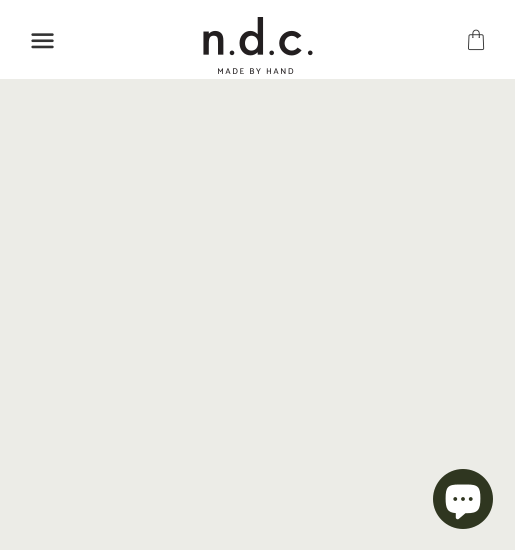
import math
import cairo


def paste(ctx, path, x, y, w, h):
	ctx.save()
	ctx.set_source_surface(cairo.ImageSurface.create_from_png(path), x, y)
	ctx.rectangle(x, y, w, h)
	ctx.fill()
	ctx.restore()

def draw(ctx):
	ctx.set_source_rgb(0.925, 0.922, 0.906)
	ctx.paint()
	ctx.set_source_rgb(1, 1, 1)
	ctx.rectangle(0, 0, 515, 79)
	ctx.fill()
	paste(ctx, 'media/1.png', 203, 17, 110, 57)
	paste(ctx, 'media/2.png', 31, 33, 23, 16)
	paste(ctx, 'media/3.png', 468, 29, 17, 22)
	ctx.set_source_rgb(0.184, 0.212, 0.125)
	ctx.arc(463, 499, 30, 0, 2 * math.pi)
	ctx.fill()
	paste(ctx, 'media/4.png', 445, 484, 36, 36)


surface = cairo.ImageSurface(cairo.FORMAT_RGB24, 515, 550)
ctx = cairo.Context(surface)
options = cairo.FontOptions()
options.set_hint_metrics(cairo.HINT_METRICS_OFF)
options.set_hint_style(cairo.HINT_STYLE_NONE)
ctx.set_font_options(options)
ctx.set_miter_limit(4)
draw(ctx)
surface.write_to_png('image.png')
